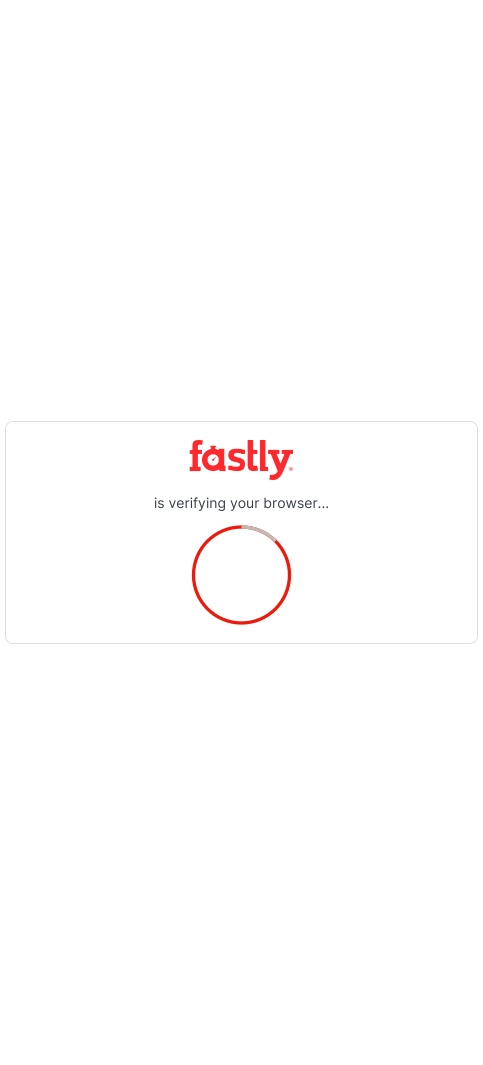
import math
import cairo


def round_path(ctx, x, y, w, h, r):
	ctx.new_sub_path()
	for i, (u, v) in enumerate([(x + w - r, y + h - r), (x + r, y + h - r), (x + r, y + r), (x + w - r, y + r)]):
		ctx.arc(u, v, r, i * math.pi / 2, (i + 1) * math.pi / 2)
	ctx.close_path()

def paste(ctx, path, x, y, w, h):
	ctx.save()
	ctx.set_source_surface(cairo.ImageSurface.create_from_png(path), x, y)
	ctx.rectangle(x, y, w, h)
	ctx.fill()
	ctx.restore()

def draw(ctx):
	ctx.set_source_rgb(1, 1, 1)
	ctx.paint()
	round_path(ctx, 5.5, 421.5, 472, 222, 7.5)
	ctx.set_source_rgb(0.863, 0.878, 0.894)
	ctx.set_line_width(1)
	ctx.stroke()
	paste(ctx, 'media/1.png', 189, 440, 104, 40)
	ctx.select_font_face('Inter')
	ctx.set_font_size(14)
	ctx.set_source_rgb(0.227, 0.259, 0.29)
	ctx.move_to(154, 508)
	ctx.show_text('is verifying your browser...')
	ctx.new_path()
	ctx.move_to(193.5, 575)
	ctx.curve_to(193.5, 548.5, 215, 527, 241.5, 527)
	ctx.curve_to(268, 527, 289.5, 548.5, 289.5, 575)
	ctx.curve_to(289.5, 601.5, 268, 623, 241.5, 623)
	ctx.curve_to(215, 623, 193.5, 601.5, 193.5, 575)
	ctx.close_path()
	ctx.set_source_rgb(0.922, 0.102, 0.047)
	ctx.set_line_width(3.3)
	ctx.stroke()
	ctx.new_path()
	ctx.move_to(275.5, 541)
	ctx.curve_to(266.5, 532, 254, 527, 241.5, 527)
	ctx.set_source_rgb(0.761, 0.729, 0.71)
	ctx.stroke()


surface = cairo.ImageSurface(cairo.FORMAT_RGB24, 483, 1065)
ctx = cairo.Context(surface)
options = cairo.FontOptions()
options.set_hint_metrics(cairo.HINT_METRICS_OFF)
options.set_hint_style(cairo.HINT_STYLE_NONE)
ctx.set_font_options(options)
ctx.set_miter_limit(4)
draw(ctx)
surface.write_to_png('image.png')
